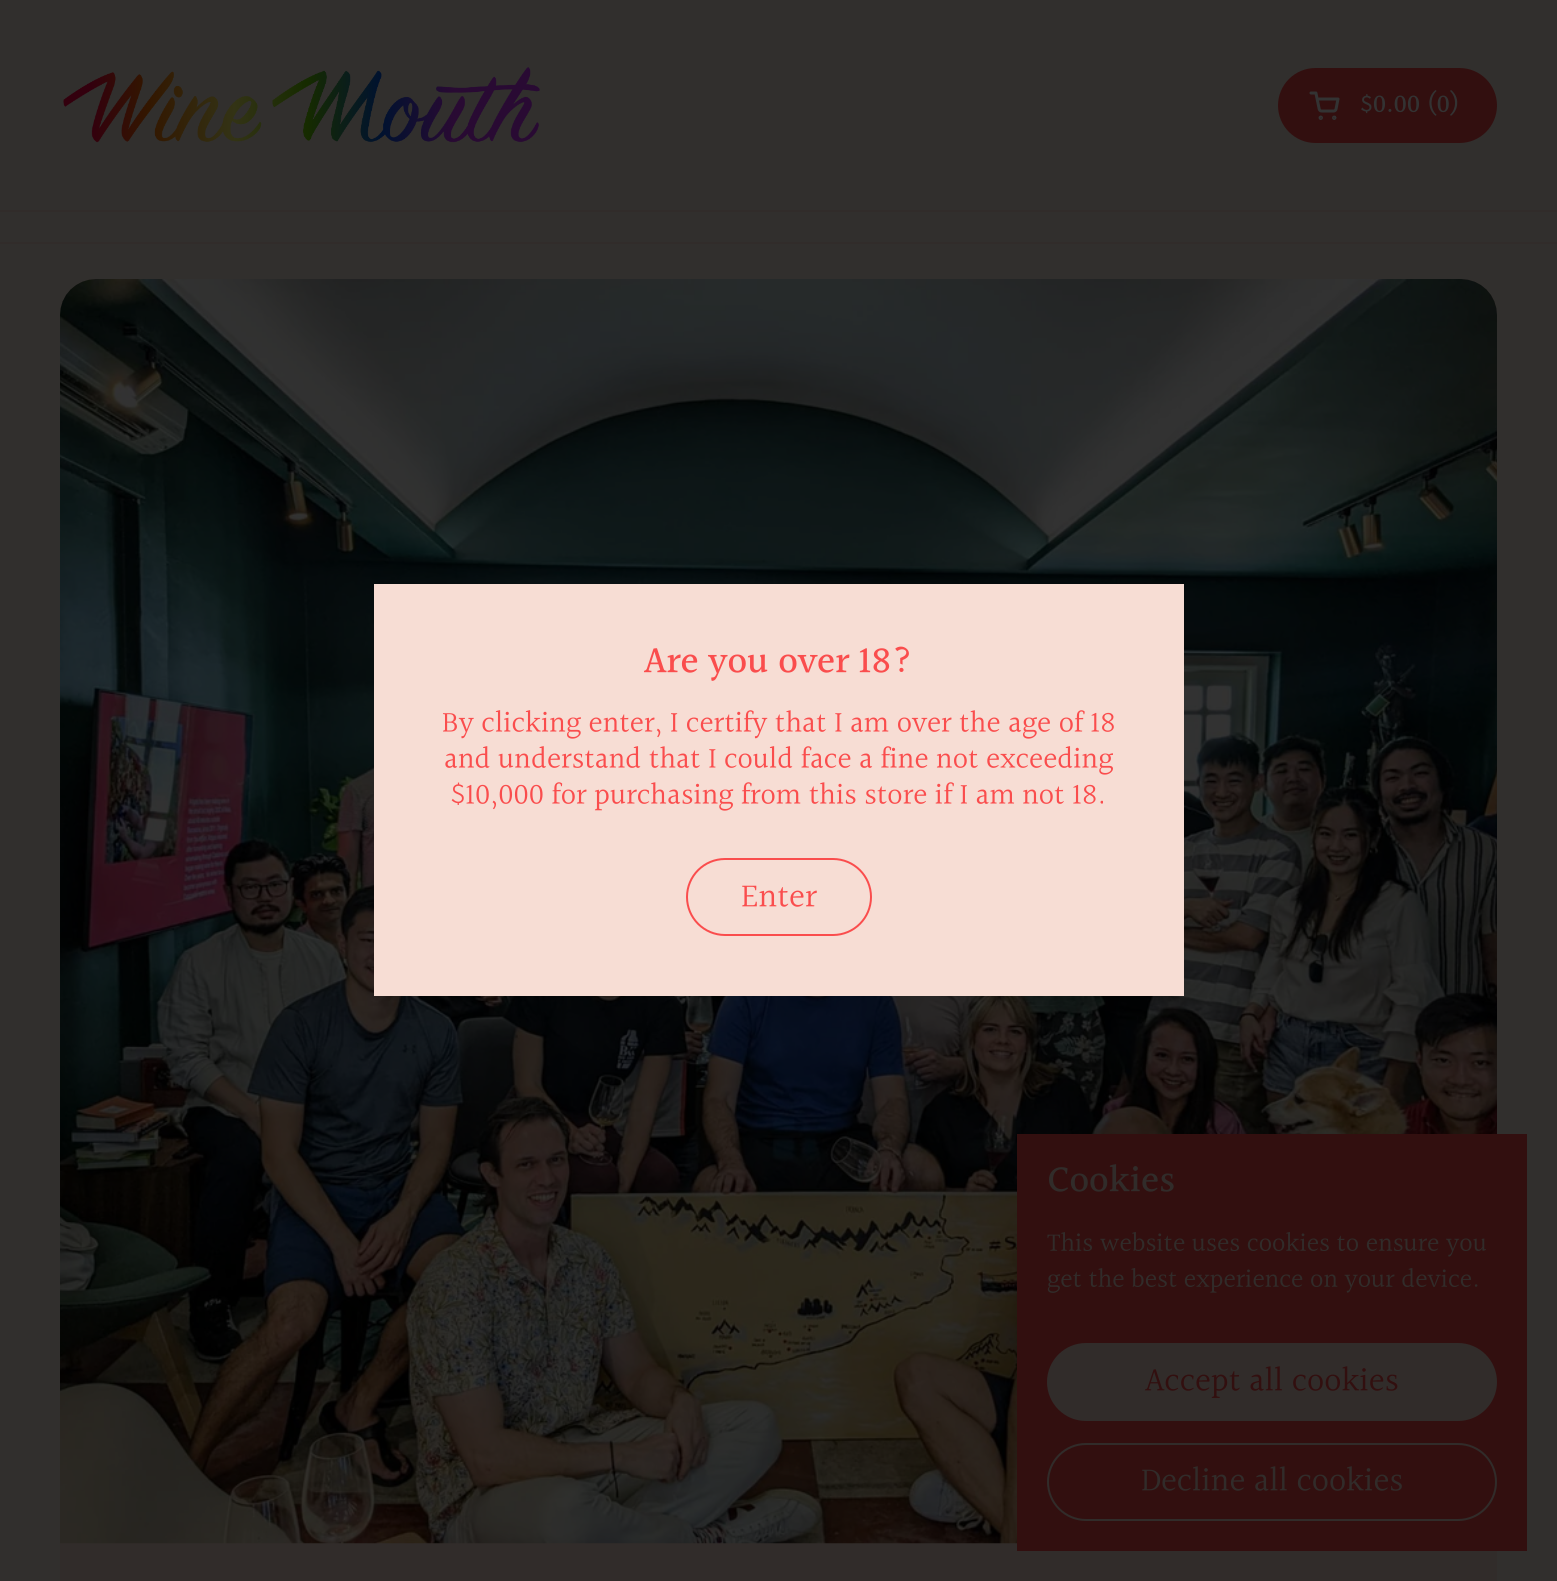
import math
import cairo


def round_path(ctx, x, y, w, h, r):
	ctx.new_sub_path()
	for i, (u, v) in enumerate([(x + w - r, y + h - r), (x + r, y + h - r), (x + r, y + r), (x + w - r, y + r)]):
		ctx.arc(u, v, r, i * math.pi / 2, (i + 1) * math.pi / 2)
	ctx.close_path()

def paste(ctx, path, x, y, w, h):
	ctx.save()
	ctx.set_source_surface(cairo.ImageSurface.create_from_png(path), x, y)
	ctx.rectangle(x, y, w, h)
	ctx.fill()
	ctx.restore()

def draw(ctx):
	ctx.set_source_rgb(0.192, 0.184, 0.176)
	ctx.paint()
	ctx.set_source_rgb(0.192, 0.173, 0.165)
	ctx.rectangle(0, 210, 1557, 2)
	ctx.fill()
	paste(ctx, 'media/1.png', 63, 67, 477, 76)
	ctx.set_source_rgb(0.196, 0.059, 0.059)
	round_path(ctx, 1279, 69, 217, 73, 36.5)
	ctx.fill_preserve()
	ctx.stroke()
	paste(ctx, 'media/2.png', 1309, 91, 31, 29)
	ctx.select_font_face('Halant Medium')
	ctx.set_font_size(25.5)
	ctx.set_source_rgb(0.2, 0.2, 0.2)
	ctx.move_to(1360, 113)
	ctx.show_text('$0.00 (0)')
	ctx.set_source_rgb(0.192, 0.173, 0.165)
	ctx.rectangle(0, 242, 1557, 2)
	ctx.fill()
	round_path(ctx, 60, 279, 1437, 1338, 36)
	ctx.fill()
	paste(ctx, 'media/3.png', 60, 279, 1437, 1265)
	ctx.set_source_rgb(0.965, 0.867, 0.831)
	ctx.rectangle(374, 584, 810, 412)
	ctx.fill()
	ctx.set_font_size(37.75)
	ctx.set_source_rgb(0.98, 0.302, 0.302)
	ctx.move_to(644, 674)
	ctx.show_text('Are you over 18?')
	ctx.select_font_face('Halant')
	ctx.set_font_size(30)
	for x, y, s in [
		(442, 733, 'By clicking enter, I certify that I am over the age of 18'),
		(444, 769, 'and understand that I could face a fine not exceeding'),
		(450, 805, '$10,000 for purchasing from this store if I am not 18.'),
	]:
		ctx.move_to(x, y)
		ctx.show_text(s)
	round_path(ctx, 687, 859, 184, 76, 38)
	ctx.stroke()
	ctx.set_font_size(33.75)
	ctx.move_to(741, 908)
	ctx.show_text('Enter')
	ctx.set_source_rgb(0.196, 0.059, 0.059)
	ctx.rectangle(1017, 1134, 510, 417)
	ctx.fill()
	ctx.select_font_face('Halant Medium')
	ctx.set_font_size(37.75)
	ctx.set_source_rgb(0.192, 0.173, 0.165)
	ctx.move_to(1047, 1193)
	ctx.show_text('Cookies')
	ctx.select_font_face('Halant')
	ctx.set_font_size(26.25)
	ctx.move_to(1047, 1252)
	ctx.show_text('This website uses cookies to ensure you')
	ctx.move_to(1047, 1288)
	ctx.show_text('get the best experience on your device.')
	round_path(ctx, 1048, 1344, 448, 76, 38)
	ctx.fill_preserve()
	ctx.stroke()
	ctx.set_font_size(33.75)
	ctx.set_source_rgb(0.196, 0.059, 0.059)
	ctx.move_to(1145, 1392)
	ctx.show_text('Accept all cookies')
	round_path(ctx, 1048, 1444, 448, 76, 38)
	ctx.set_source_rgb(0.192, 0.173, 0.165)
	ctx.stroke()
	ctx.move_to(1141, 1492)
	ctx.show_text('Decline all cookies')


surface = cairo.ImageSurface(cairo.FORMAT_RGB24, 1557, 1581)
ctx = cairo.Context(surface)
options = cairo.FontOptions()
options.set_hint_metrics(cairo.HINT_METRICS_OFF)
options.set_hint_style(cairo.HINT_STYLE_NONE)
ctx.set_font_options(options)
ctx.set_miter_limit(4)
draw(ctx)
surface.write_to_png('image.png')
